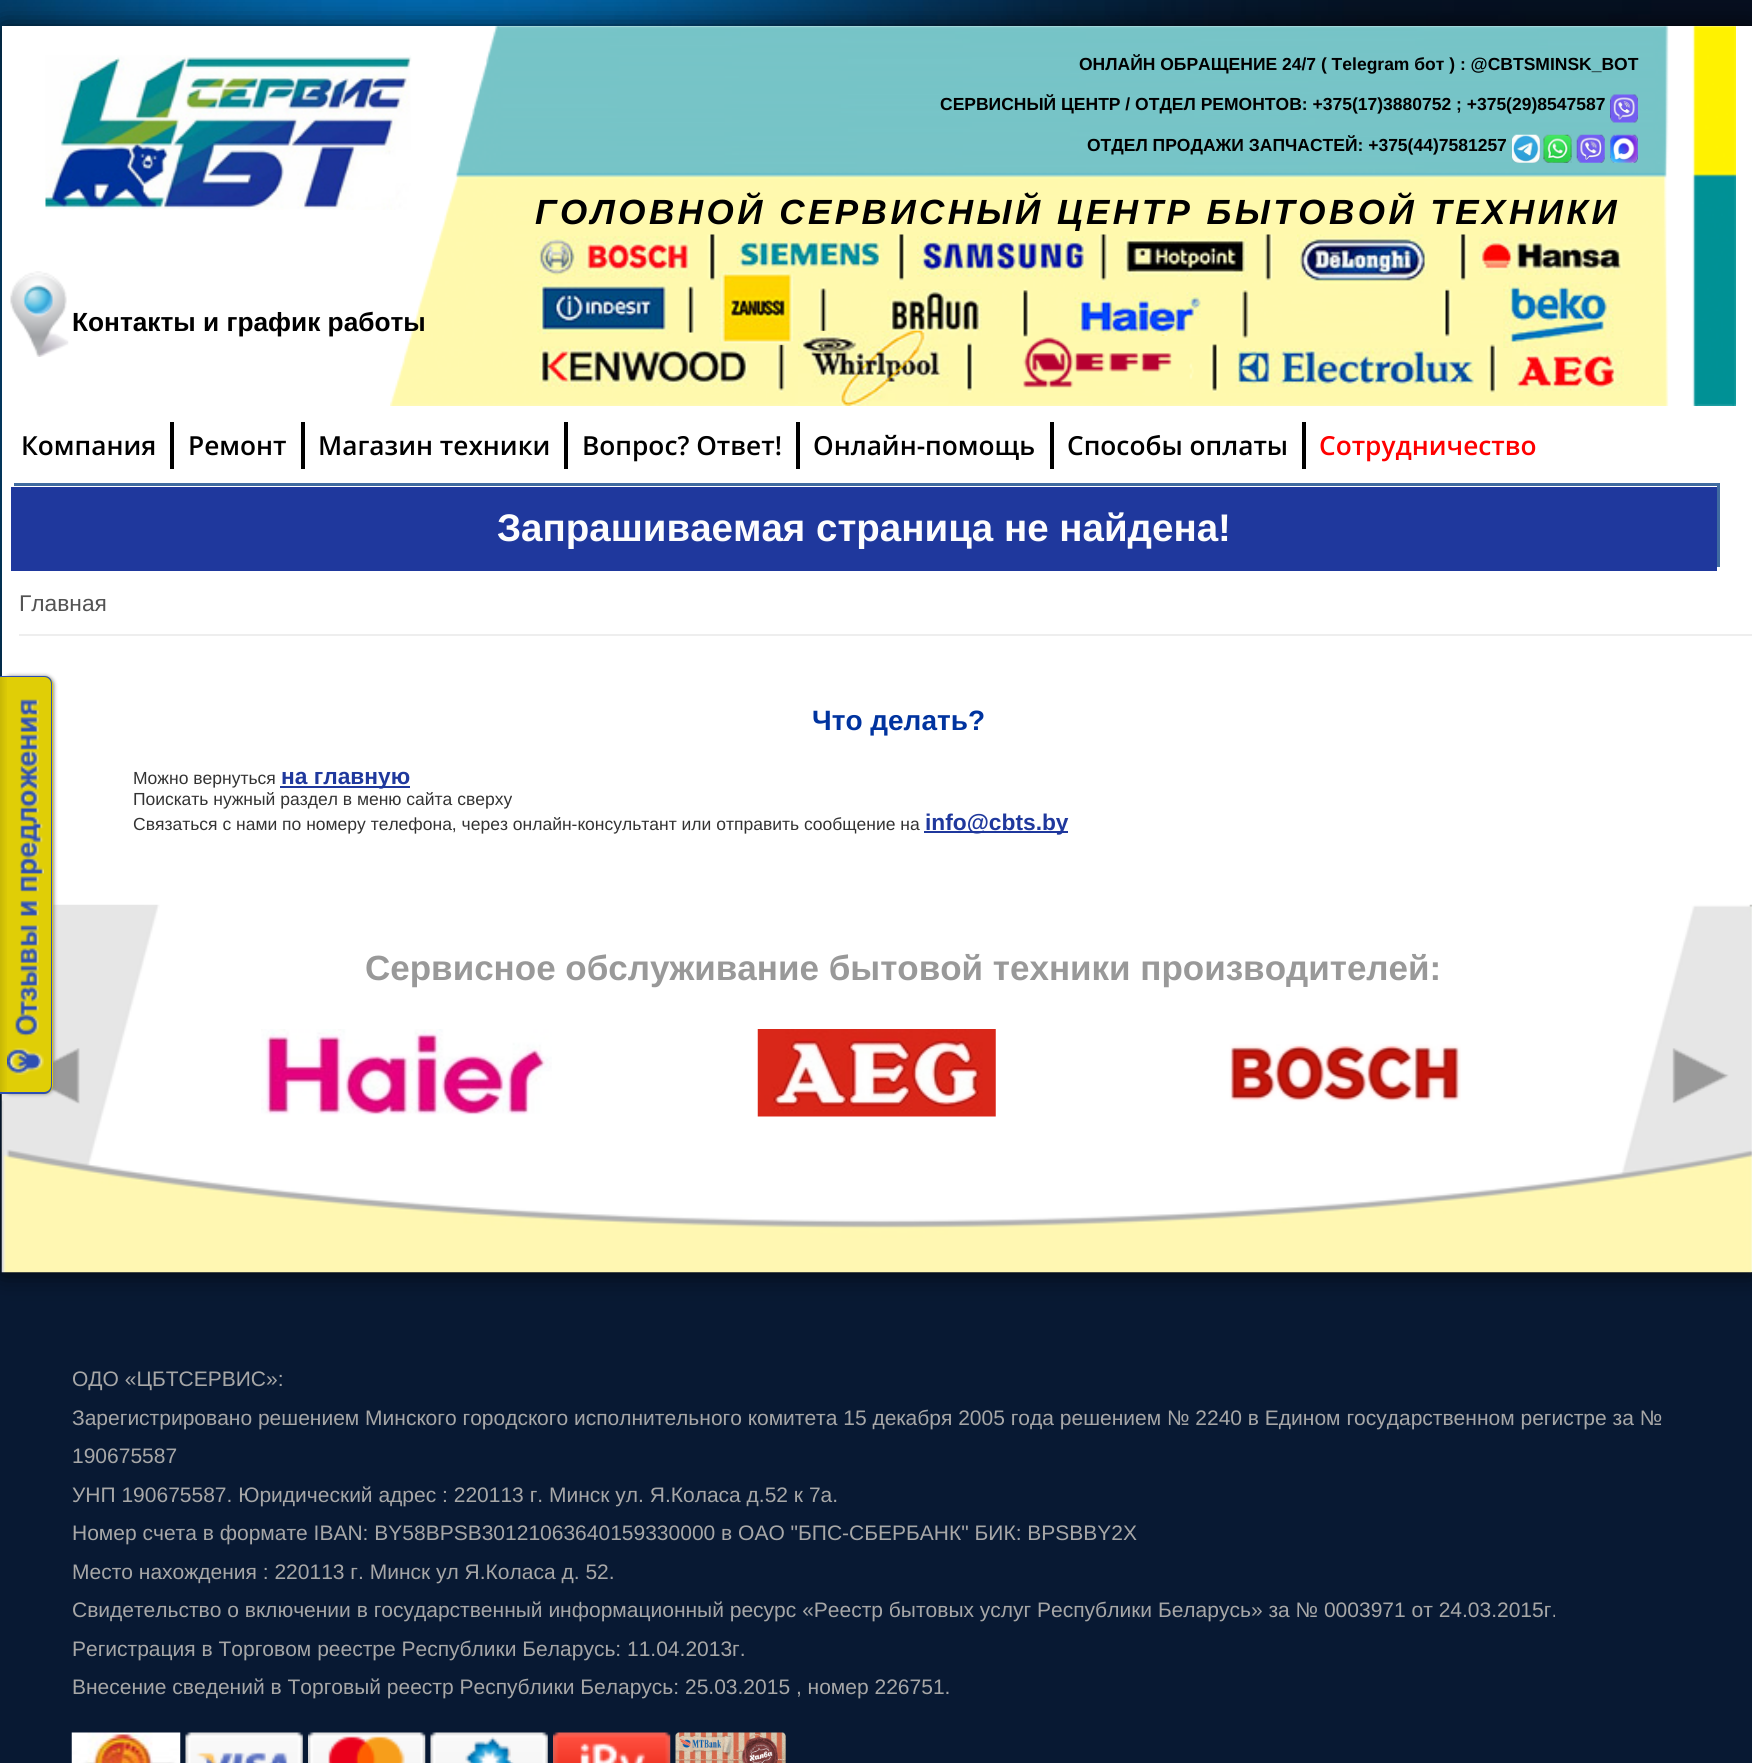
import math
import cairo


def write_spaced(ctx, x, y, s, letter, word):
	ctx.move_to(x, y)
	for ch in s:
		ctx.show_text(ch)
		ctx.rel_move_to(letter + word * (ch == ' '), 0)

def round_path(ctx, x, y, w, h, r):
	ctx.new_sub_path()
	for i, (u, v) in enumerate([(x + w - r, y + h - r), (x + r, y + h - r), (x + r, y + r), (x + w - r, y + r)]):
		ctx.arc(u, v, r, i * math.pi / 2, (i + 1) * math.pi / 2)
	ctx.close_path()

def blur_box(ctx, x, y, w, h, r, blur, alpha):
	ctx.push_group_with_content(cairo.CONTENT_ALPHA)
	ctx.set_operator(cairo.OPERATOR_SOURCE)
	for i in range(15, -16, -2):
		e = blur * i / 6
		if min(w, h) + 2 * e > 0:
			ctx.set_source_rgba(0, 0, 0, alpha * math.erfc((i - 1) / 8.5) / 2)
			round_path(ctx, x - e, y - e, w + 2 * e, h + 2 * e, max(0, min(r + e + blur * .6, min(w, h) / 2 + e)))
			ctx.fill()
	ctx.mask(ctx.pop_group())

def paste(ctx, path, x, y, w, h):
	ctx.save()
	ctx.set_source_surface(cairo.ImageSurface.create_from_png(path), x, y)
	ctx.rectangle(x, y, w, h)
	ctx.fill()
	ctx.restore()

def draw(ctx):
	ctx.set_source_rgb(0.035, 0.098, 0.2)
	ctx.paint()
	paste(ctx, 'media/1.png', 0, 0, 1752, 1207)
	ctx.set_source_rgb(0, 0, 0)
	blur_box(ctx, 2, 26, 1750, 1246, 0, 13, 0.8)
	ctx.set_source_rgb(1, 1, 1)
	ctx.rectangle(2, 26, 1750, 1246)
	ctx.fill()
	paste(ctx, 'media/2.png', 390, 26, 1346, 380)
	paste(ctx, 'media/3.png', 45, 55, 367, 155)
	ctx.select_font_face('Liberation Sans', cairo.FONT_SLANT_NORMAL, cairo.FONT_WEIGHT_BOLD)
	ctx.set_font_size(17.5)
	ctx.set_source_rgb(0, 0, 0)
	ctx.move_to(1079, 70)
	ctx.show_text('ОНЛАЙН ОБРАЩЕНИЕ 24/7 ( Telegram бот ) : @CBTSMINSK_BOT')
	ctx.move_to(940, 110)
	ctx.show_text('СЕРВИСНЫЙ ЦЕНТР / ОТДЕЛ РЕМОНТОВ: +375(17)3880752 ; +375(29)8547587')
	paste(ctx, 'media/4.png', 1610, 94, 28, 29)
	ctx.move_to(1087, 151)
	ctx.show_text('ОТДЕЛ ПРОДАЖИ ЗАПЧАСТЕЙ: +375(44)7581257')
	paste(ctx, 'media/5.png', 1512, 134, 28, 29)
	paste(ctx, 'media/6.png', 1543, 134, 29, 29)
	paste(ctx, 'media/7.png', 1576, 134, 29, 29)
	paste(ctx, 'media/8.png', 1610, 134, 28, 29)
	ctx.select_font_face('Liberation Sans', cairo.FONT_SLANT_ITALIC, cairo.FONT_WEIGHT_BOLD)
	ctx.set_font_size(35)
	write_spaced(ctx, 535, 224, 'ГОЛОВНОЙ СЕРВИСНЫЙ ЦЕНТР БЫТОВОЙ ТЕХНИКИ', 3.5, 0)
	paste(ctx, 'media/9.png', 10, 271, 59, 86)
	ctx.select_font_face('Liberation Sans', cairo.FONT_SLANT_NORMAL, cairo.FONT_WEIGHT_BOLD)
	ctx.set_font_size(26.25)
	ctx.move_to(72, 331)
	ctx.show_text('Контакты и график работы')
	paste(ctx, 'media/10.png', 535, 236, 155, 42)
	paste(ctx, 'media/11.png', 736, 239, 148, 29)
	paste(ctx, 'media/12.png', 917, 236, 169, 41)
	paste(ctx, 'media/13.png', 1122, 236, 126, 41)
	paste(ctx, 'media/14.png', 1297, 234, 131, 50)
	paste(ctx, 'media/15.png', 1478, 236, 145, 39)
	paste(ctx, 'media/16.png', 537, 281, 133, 54)
	paste(ctx, 'media/17.png', 719, 271, 76, 74)
	paste(ctx, 'media/18.png', 887, 289, 95, 47)
	paste(ctx, 'media/19.png', 1074, 292, 127, 44)
	paste(ctx, 'media/20.png', 1503, 282, 111, 66)
	paste(ctx, 'media/21.png', 539, 346, 210, 41)
	paste(ctx, 'media/22.png', 798, 330, 151, 76)
	paste(ctx, 'media/23.png', 1023, 337, 149, 51)
	paste(ctx, 'media/24.png', 1235, 348, 239, 39)
	paste(ctx, 'media/25.png', 1512, 348, 112, 43)
	ctx.select_font_face('Open Sans SemiBold')
	ctx.move_to(21, 455)
	ctx.show_text('Компания')
	ctx.rectangle(170, 422, 4, 47)
	ctx.fill()
	ctx.move_to(188, 455)
	ctx.show_text('Ремонт')
	ctx.rectangle(301, 422, 4, 47)
	ctx.fill()
	ctx.move_to(318, 455)
	ctx.show_text('Магазин техники')
	ctx.rectangle(564, 422, 4, 47)
	ctx.fill()
	ctx.move_to(582, 455)
	ctx.show_text('Вопрос? Ответ!')
	ctx.rectangle(796, 422, 4, 47)
	ctx.fill()
	ctx.move_to(813, 455)
	ctx.show_text('Онлайн-помощь')
	ctx.rectangle(1050, 422, 4, 47)
	ctx.fill()
	ctx.move_to(1067, 455)
	ctx.show_text('Способы оплаты')
	ctx.rectangle(1302, 422, 4, 47)
	ctx.fill()
	ctx.set_source_rgb(1, 0, 0)
	ctx.move_to(1319, 455)
	ctx.show_text('Сотрудничество')
	ctx.set_source_rgb(0.251, 0.42, 0.627)
	ctx.new_path()
	ctx.move_to(14, 483)
	ctx.line_to(14, 486)
	ctx.line_to(1717, 486)
	ctx.line_to(1717, 567)
	ctx.line_to(1720, 567)
	ctx.line_to(1720, 483)
	ctx.close_path()
	ctx.fill()
	ctx.set_source_rgb(0.122, 0.22, 0.616)
	ctx.rectangle(11, 487, 1706, 84)
	ctx.fill()
	ctx.select_font_face('Liberation Sans', cairo.FONT_SLANT_NORMAL, cairo.FONT_WEIGHT_BOLD)
	ctx.set_font_size(38.5)
	ctx.set_source_rgb(0.992, 0.992, 0.992)
	ctx.move_to(497, 541)
	ctx.show_text('Запрашиваемая страница не найдена!')
	ctx.set_source_rgb(0.933, 0.933, 0.933)
	ctx.rectangle(19, 634, 1733, 2)
	ctx.fill()
	ctx.select_font_face('Liberation Sans')
	ctx.set_font_size(22.75)
	ctx.set_source_rgb(0.325, 0.325, 0.325)
	ctx.move_to(19, 611)
	ctx.show_text('Главная')
	ctx.select_font_face('Liberation Sans', cairo.FONT_SLANT_NORMAL, cairo.FONT_WEIGHT_BOLD)
	ctx.set_font_size(28)
	ctx.set_source_rgb(0, 0.2, 0.624)
	ctx.move_to(812, 730)
	ctx.show_text('Что делать?')
	ctx.select_font_face('Liberation Sans')
	ctx.set_font_size(17.5)
	ctx.set_source_rgb(0.2, 0.2, 0.2)
	ctx.move_to(133, 784)
	ctx.show_text('Можно вернуться')
	ctx.set_source_rgb(0.122, 0.22, 0.616)
	ctx.rectangle(280, 786, 130, 2)
	ctx.fill()
	ctx.select_font_face('Liberation Sans', cairo.FONT_SLANT_NORMAL, cairo.FONT_WEIGHT_BOLD)
	ctx.set_font_size(22.75)
	ctx.move_to(281, 784)
	ctx.show_text('на главную')
	ctx.select_font_face('Liberation Sans')
	ctx.set_font_size(17.5)
	ctx.set_source_rgb(0.2, 0.2, 0.2)
	ctx.move_to(133, 805)
	ctx.show_text('Поискать нужный раздел в меню сайта сверху')
	ctx.move_to(133, 830)
	ctx.show_text('Связаться с нами по номеру телефона, через онлайн-консультант или отправить сообщение на')
	ctx.set_source_rgb(0.122, 0.22, 0.616)
	ctx.rectangle(924, 831, 144, 2)
	ctx.fill()
	ctx.select_font_face('Liberation Sans', cairo.FONT_SLANT_NORMAL, cairo.FONT_WEIGHT_BOLD)
	ctx.set_font_size(22.75)
	ctx.move_to(925, 830)
	ctx.show_text('info@cbts.by')
	paste(ctx, 'media/26.png', 1, 904, 1751, 369)
	ctx.set_font_size(35)
	ctx.set_source_rgb(0.6, 0.6, 0.6)
	ctx.move_to(365, 980)
	ctx.show_text('Сервисное обслуживание бытовой техники производителей:')
	paste(ctx, 'media/27.png', 50, 1048, 30, 56)
	paste(ctx, 'media/28.png', 261, 1029, 291, 86)
	paste(ctx, 'media/29.png', 757, 1029, 239, 88)
	paste(ctx, 'media/30.png', 1229, 1044, 232, 58)
	paste(ctx, 'media/31.png', 1672, 1048, 57, 56)
	ctx.set_source_rgb(0.533, 0.533, 0.533)
	blur_box(ctx, 2, 676, 52, 418, 9, 2, 1)
	ctx.set_source_rgb(0.878, 0.808, 0.027)
	ctx.new_path()
	ctx.move_to(0, 676)
	ctx.line_to(44, 676)
	ctx.curve_to(49, 676, 53, 680, 53, 685)
	ctx.line_to(53, 1085)
	ctx.curve_to(53, 1090, 49, 1094, 44, 1094)
	ctx.line_to(0, 1094)
	ctx.close_path()
	ctx.fill()
	paste(ctx, 'media/32.png', 0, 675, 7, 417)
	ctx.set_source_rgb(0.18, 0.31, 0.702)
	ctx.set_fill_rule(cairo.FILL_RULE_EVEN_ODD)
	ctx.new_path()
	ctx.move_to(0, 676)
	ctx.line_to(44, 676)
	ctx.curve_to(49, 676, 52, 679, 52, 684)
	ctx.line_to(52, 1085)
	ctx.curve_to(52, 1090, 49, 1094, 44, 1094)
	ctx.line_to(0, 1094)
	ctx.close_path()
	ctx.move_to(0, 677)
	ctx.line_to(44, 677)
	ctx.curve_to(48, 677, 51, 680, 51, 684)
	ctx.line_to(51, 1085)
	ctx.curve_to(51, 1089, 48, 1092, 44, 1092)
	ctx.line_to(0, 1092)
	ctx.close_path()
	ctx.fill()
	paste(ctx, 'media/33.png', 7, 699, 37, 376)
	ctx.select_font_face('Liberation Sans')
	ctx.set_font_size(21)
	ctx.set_source_rgb(0.655, 0.655, 0.655)
	for x, y, s in [
		(72, 1386, 'ОДО «ЦБТСЕРВИС»:'),
		(72, 1425, 'Зарегистрировано решением Минского городского исполнительного комитета 15 декабря 2005 года решением № 2240 в Едином государственном регистре за №'),
		(72, 1463, '190675587'),
		(72, 1502, 'УНП 190675587. Юридический адрес : 220113 г. Минск ул. Я.Коласа д.52 к 7а.'),
		(72, 1540, 'Номер счета в формате IBAN: BY58BPSB30121063640159330000 в ОАО "БПС-СБЕРБАНК" БИК: BPSBBY2X'),
		(72, 1579, 'Место нахождения : 220113 г. Минск ул Я.Коласа д. 52.'),
		(72, 1617, 'Свидетельство о включении в государственный информационный ресурс «Реестр бытовых услуг Республики Беларусь» за № 0003971 от 24.03.2015г.'),
		(72, 1656, 'Регистрация в Торговом реестре Республики Беларусь: 11.04.2013г.'),
		(72, 1694, 'Внесение сведений в Торговый реестр Республики Беларусь: 25.03.2015 , номер 226751.'),
	]:
		ctx.move_to(x, y)
		ctx.show_text(s)
	paste(ctx, 'media/34.png', 71, 1732, 110, 31)
	paste(ctx, 'media/35.png', 185, 1732, 118, 31)
	paste(ctx, 'media/36.png', 308, 1732, 118, 31)
	paste(ctx, 'media/37.png', 430, 1732, 118, 31)
	paste(ctx, 'media/38.png', 553, 1732, 118, 31)
	paste(ctx, 'media/39.png', 675, 1732, 111, 31)


surface = cairo.ImageSurface(cairo.FORMAT_RGB24, 1752, 1763)
ctx = cairo.Context(surface)
options = cairo.FontOptions()
options.set_hint_metrics(cairo.HINT_METRICS_OFF)
options.set_hint_style(cairo.HINT_STYLE_NONE)
ctx.set_font_options(options)
ctx.set_miter_limit(4)
draw(ctx)
surface.write_to_png('image.png')
